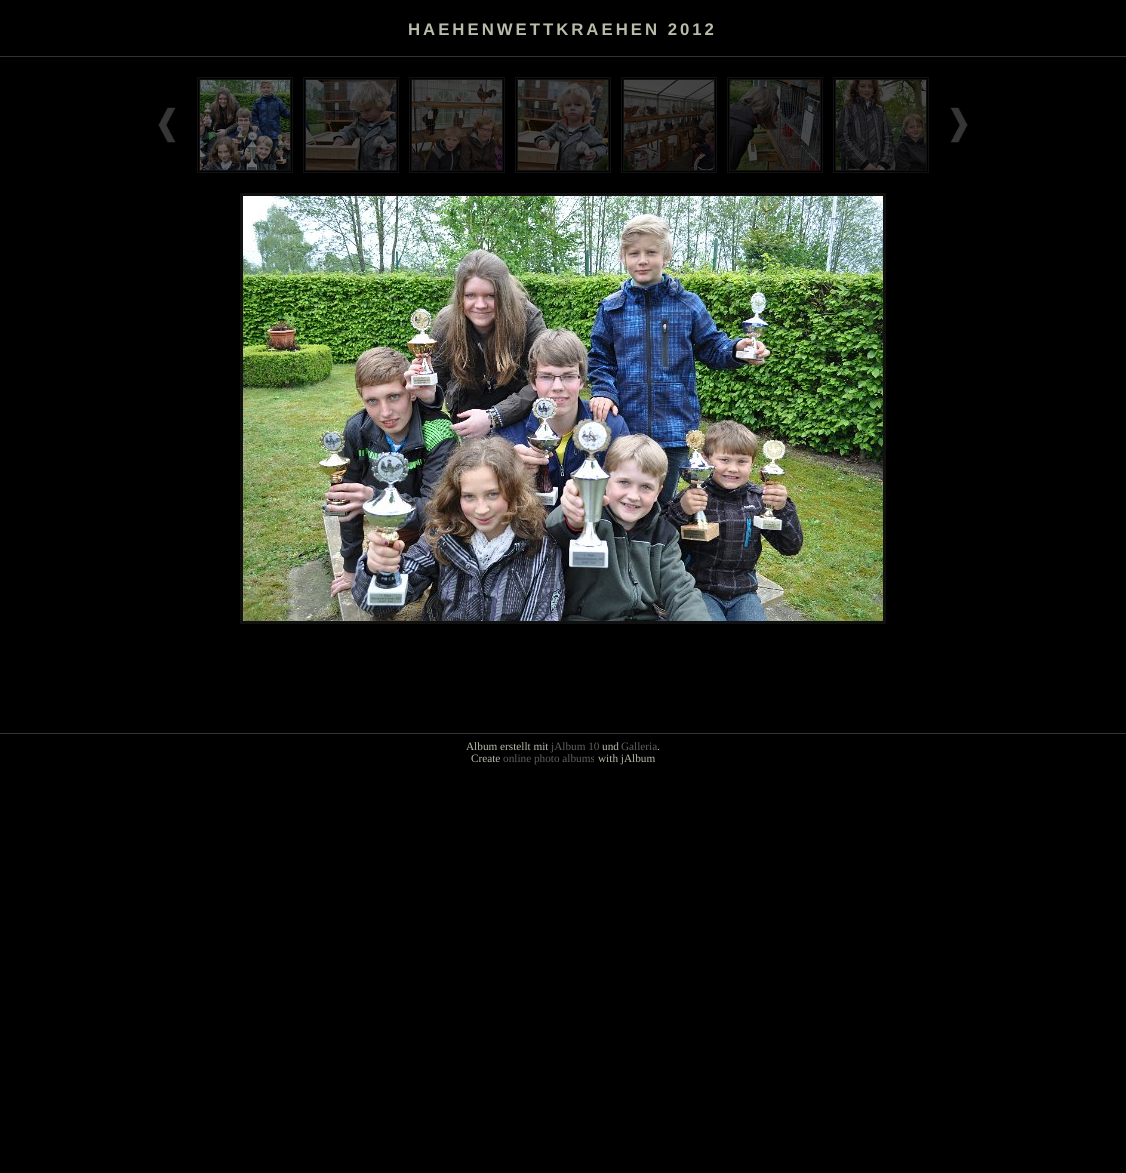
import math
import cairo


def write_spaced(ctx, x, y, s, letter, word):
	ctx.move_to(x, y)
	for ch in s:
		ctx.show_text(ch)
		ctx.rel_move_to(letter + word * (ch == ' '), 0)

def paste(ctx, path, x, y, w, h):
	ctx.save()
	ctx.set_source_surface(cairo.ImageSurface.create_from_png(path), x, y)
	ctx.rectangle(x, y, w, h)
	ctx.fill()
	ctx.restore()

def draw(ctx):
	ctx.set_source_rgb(0, 0, 0)
	ctx.paint()
	ctx.set_source_rgb(0.2, 0.2, 0.2)
	ctx.rectangle(0, 56, 1126, 1)
	ctx.fill()
	ctx.select_font_face('Liberation Sans', cairo.FONT_SLANT_NORMAL, cairo.FONT_WEIGHT_BOLD)
	ctx.set_font_size(16.75)
	ctx.set_source_rgb(0.733, 0.733, 0.667)
	write_spaced(ctx, 408, 35, 'HAEHENWETTKRAEHEN 2012', 3, 0)
	paste(ctx, 'media/1.png', 158, 107, 18, 36)
	ctx.rectangle(197.5, 77.5, 95, 95)
	ctx.set_source_rgb(0.067, 0.067, 0.067)
	ctx.set_line_width(1)
	ctx.stroke()
	ctx.rectangle(199.5, 79.5, 91, 91)
	ctx.stroke()
	paste(ctx, 'media/2.png', 200, 80, 90, 90)
	ctx.rectangle(303.5, 77.5, 95, 95)
	ctx.stroke()
	ctx.rectangle(305.5, 79.5, 91, 91)
	ctx.stroke()
	paste(ctx, 'media/3.png', 306, 80, 90, 90)
	ctx.rectangle(409.5, 77.5, 95, 95)
	ctx.stroke()
	ctx.rectangle(411.5, 79.5, 91, 91)
	ctx.stroke()
	paste(ctx, 'media/4.png', 412, 80, 90, 90)
	ctx.rectangle(515.5, 77.5, 95, 95)
	ctx.stroke()
	ctx.rectangle(517.5, 79.5, 91, 91)
	ctx.stroke()
	paste(ctx, 'media/5.png', 518, 80, 90, 90)
	ctx.rectangle(621.5, 77.5, 95, 95)
	ctx.stroke()
	ctx.rectangle(623.5, 79.5, 91, 91)
	ctx.stroke()
	paste(ctx, 'media/6.png', 624, 80, 90, 90)
	ctx.rectangle(727.5, 77.5, 95, 95)
	ctx.stroke()
	ctx.rectangle(729.5, 79.5, 91, 91)
	ctx.stroke()
	paste(ctx, 'media/7.png', 730, 80, 90, 90)
	ctx.rectangle(833.5, 77.5, 95, 95)
	ctx.stroke()
	ctx.rectangle(835.5, 79.5, 91, 91)
	ctx.stroke()
	paste(ctx, 'media/8.png', 836, 80, 90, 90)
	paste(ctx, 'media/9.png', 950, 107, 18, 36)
	ctx.rectangle(241.5, 194.5, 643, 428)
	ctx.set_line_width(3)
	ctx.stroke()
	paste(ctx, 'media/10.png', 243, 196, 640, 425)
	ctx.set_source_rgb(0.2, 0.2, 0.2)
	ctx.rectangle(0, 733, 1126, 1)
	ctx.fill()
	ctx.select_font_face('Liberation Serif')
	ctx.set_font_size(11.25)
	ctx.set_source_rgb(0.733, 0.733, 0.667)
	ctx.move_to(466, 750)
	ctx.show_text('Album erstellt mit')
	ctx.set_source_rgb(0.376, 0.376, 0.376)
	ctx.move_to(551, 750)
	ctx.show_text('jAlbum 10')
	ctx.set_source_rgb(0.733, 0.733, 0.667)
	ctx.move_to(602, 750)
	ctx.show_text('und')
	ctx.set_source_rgb(0.376, 0.376, 0.376)
	ctx.move_to(621, 750)
	ctx.show_text('Galleria')
	ctx.set_source_rgb(0.733, 0.733, 0.667)
	ctx.move_to(657, 750)
	ctx.show_text('.')
	ctx.move_to(471, 762)
	ctx.show_text('Create')
	ctx.set_source_rgb(0.376, 0.376, 0.376)
	ctx.move_to(503, 762)
	ctx.show_text('online photo albums')
	ctx.set_source_rgb(0.733, 0.733, 0.667)
	ctx.move_to(598, 762)
	ctx.show_text('with jAlbum')


surface = cairo.ImageSurface(cairo.FORMAT_RGB24, 1126, 1173)
ctx = cairo.Context(surface)
options = cairo.FontOptions()
options.set_hint_metrics(cairo.HINT_METRICS_OFF)
options.set_hint_style(cairo.HINT_STYLE_NONE)
ctx.set_font_options(options)
ctx.set_miter_limit(4)
draw(ctx)
surface.write_to_png('image.png')
